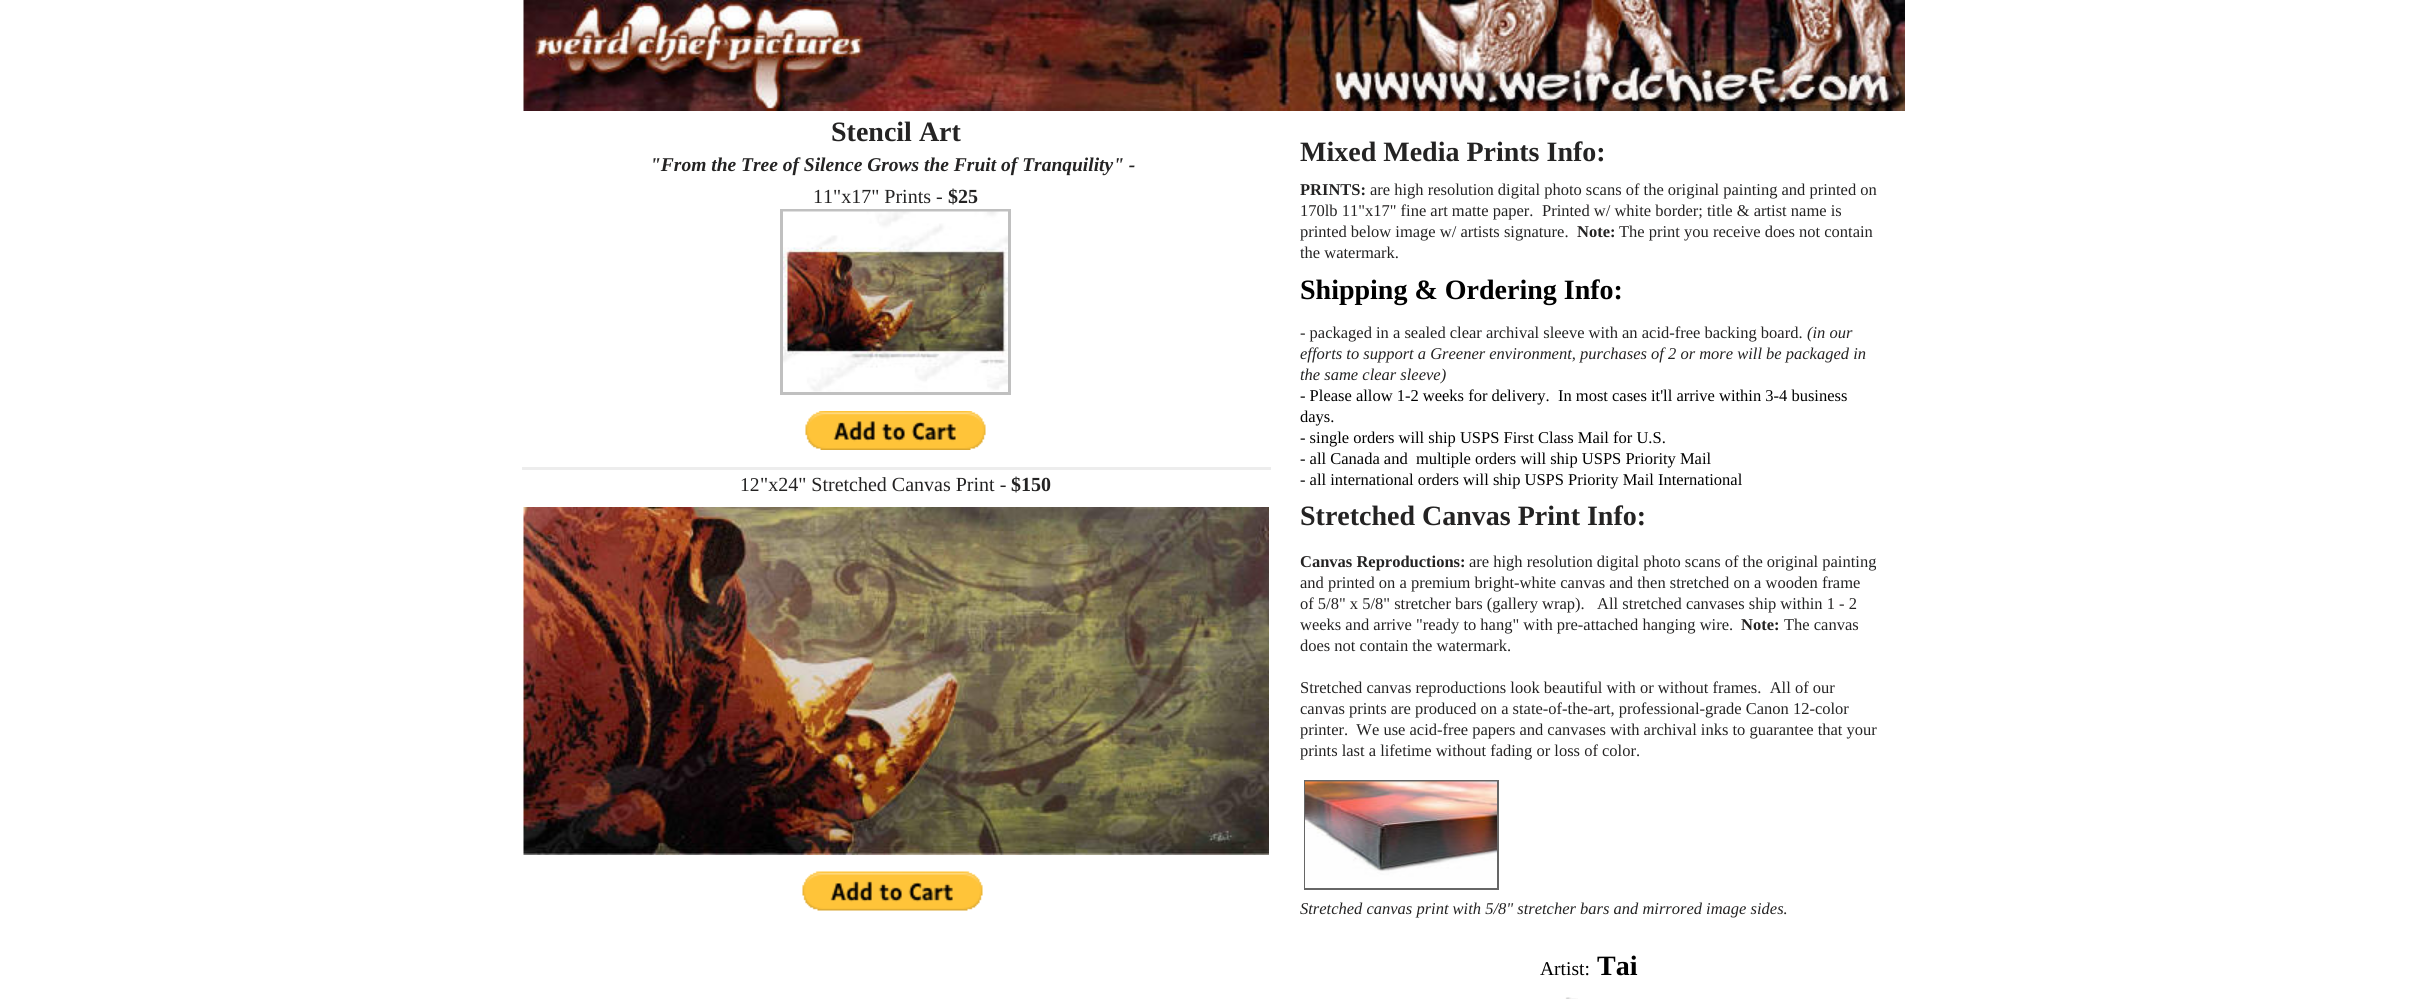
import math
import cairo


def paste(ctx, path, x, y, w, h):
	ctx.save()
	ctx.set_source_surface(cairo.ImageSurface.create_from_png(path), x, y)
	ctx.rectangle(x, y, w, h)
	ctx.fill()
	ctx.restore()

def draw(ctx):
	ctx.set_source_rgb(1, 1, 1)
	ctx.paint()
	paste(ctx, 'media/1.png', 523, 0, 1382, 111)
	ctx.select_font_face('Liberation Serif', cairo.FONT_SLANT_NORMAL, cairo.FONT_WEIGHT_BOLD)
	ctx.set_font_size(28)
	ctx.set_source_rgb(0.141, 0.137, 0.137)
	ctx.move_to(831, 141)
	ctx.show_text('Stencil Art')
	ctx.select_font_face('Liberation Serif', cairo.FONT_SLANT_ITALIC, cairo.FONT_WEIGHT_BOLD)
	ctx.set_font_size(19.5)
	ctx.move_to(650, 171)
	ctx.show_text('"From the Tree of Silence Grows the Fruit of Tranquility" -')
	ctx.select_font_face('Liberation Serif')
	ctx.set_font_size(20)
	ctx.move_to(813, 203)
	ctx.show_text('11"x17" Prints -')
	ctx.select_font_face('Liberation Serif', cairo.FONT_SLANT_NORMAL, cairo.FONT_WEIGHT_BOLD)
	ctx.move_to(948, 203)
	ctx.show_text('$25')
	ctx.rectangle(781.5, 210.5, 228, 183)
	ctx.set_source_rgb(0.753, 0.753, 0.753)
	ctx.set_line_width(3)
	ctx.stroke()
	paste(ctx, 'media/2.png', 783, 211, 225, 181)
	paste(ctx, 'media/3.png', 805, 411, 181, 39)
	ctx.set_source_rgb(0.929, 0.929, 0.929)
	ctx.rectangle(522, 467, 749, 3)
	ctx.fill()
	ctx.select_font_face('Liberation Serif')
	ctx.set_font_size(19.5)
	ctx.set_source_rgb(0.141, 0.137, 0.137)
	ctx.move_to(740, 491)
	ctx.show_text('12')
	ctx.set_font_size(20)
	ctx.move_to(760, 491)
	ctx.show_text('"x24" Stretched Canvas Print -')
	ctx.select_font_face('Liberation Serif', cairo.FONT_SLANT_NORMAL, cairo.FONT_WEIGHT_BOLD)
	ctx.move_to(1011, 491)
	ctx.show_text('$150')
	paste(ctx, 'media/4.png', 523, 507, 746, 348)
	paste(ctx, 'media/5.png', 802, 871, 181, 40)
	ctx.set_font_size(28)
	ctx.move_to(1300, 161)
	ctx.show_text('Mixed Media Prints Info:')
	ctx.set_font_size(16.5)
	ctx.move_to(1300, 195)
	ctx.show_text('PRINTS:')
	ctx.select_font_face('Liberation Serif')
	for x, y, s in [
		(1370, 195, 'are high resolution digital photo scans of the original painting and printed on'),
		(1300, 216, '170lb 11"x17" fine art matte paper.'),
		(1542, 216, 'Printed w/ white border; title & artist name is'),
		(1300, 237, 'printed below image w/ artists signature.'),
	]:
		ctx.move_to(x, y)
		ctx.show_text(s)
	ctx.select_font_face('Liberation Serif', cairo.FONT_SLANT_NORMAL, cairo.FONT_WEIGHT_BOLD)
	ctx.move_to(1577, 237)
	ctx.show_text('Note:')
	ctx.select_font_face('Liberation Serif')
	ctx.move_to(1619, 237)
	ctx.show_text('The print you receive does not contain')
	ctx.move_to(1300, 258)
	ctx.show_text('the watermark.')
	ctx.select_font_face('Liberation Serif', cairo.FONT_SLANT_NORMAL, cairo.FONT_WEIGHT_BOLD)
	ctx.set_font_size(28)
	ctx.set_source_rgb(0, 0, 0)
	ctx.move_to(1300, 299)
	ctx.show_text('Shipping & Ordering Info:')
	ctx.select_font_face('Liberation Serif')
	ctx.set_font_size(16.5)
	ctx.set_source_rgb(0.141, 0.137, 0.137)
	ctx.move_to(1300, 338)
	ctx.show_text('- packaged in a sealed clear archival sleeve with an acid-free backing board.')
	ctx.select_font_face('Liberation Serif', cairo.FONT_SLANT_ITALIC)
	for x, y, s in [
		(1807, 338, '(in our'),
		(1300, 359, 'efforts to support a Greener environment, purchases of 2 or more will be packaged in'),
		(1300, 380, 'the same clear sleeve)'),
	]:
		ctx.move_to(x, y)
		ctx.show_text(s)
	ctx.select_font_face('Liberation Serif')
	ctx.set_source_rgb(0, 0, 0)
	for x, y, s in [
		(1300, 401, '- Please allow 1-2 weeks for delivery.  In most cases it\'ll arrive within 3-4 business'),
		(1300, 422, 'days.'),
		(1300, 443, '- single orders will ship USPS First Class Mail for U.S.'),
		(1300, 464, '- all Canada and  multiple orders will ship USPS Priority Mail'),
		(1300, 485, '- all international orders will ship USPS Priority Mail International'),
	]:
		ctx.move_to(x, y)
		ctx.show_text(s)
	ctx.select_font_face('Liberation Serif', cairo.FONT_SLANT_NORMAL, cairo.FONT_WEIGHT_BOLD)
	ctx.set_font_size(28)
	ctx.set_source_rgb(0.141, 0.137, 0.137)
	ctx.move_to(1300, 525)
	ctx.show_text('Stretched Canvas Print Info:')
	ctx.set_font_size(16.5)
	ctx.move_to(1300, 567)
	ctx.show_text('Canvas Reproductions:')
	ctx.select_font_face('Liberation Serif')
	for x, y, s in [
		(1469, 567, 'are high resolution digital photo scans of the original painting'),
		(1300, 588, 'and printed on a premium bright-white canvas and then stretched on a wooden frame'),
		(1300, 609, 'of 5/8" x 5/8" stretcher bars (gallery wrap).   All stretched canvases ship within 1 - 2'),
		(1300, 630, 'weeks and arrive "ready to hang" with pre-attached hanging wire.'),
	]:
		ctx.move_to(x, y)
		ctx.show_text(s)
	ctx.select_font_face('Liberation Serif', cairo.FONT_SLANT_NORMAL, cairo.FONT_WEIGHT_BOLD)
	ctx.move_to(1741, 630)
	ctx.show_text('Note:')
	ctx.select_font_face('Liberation Serif')
	for x, y, s in [
		(1784, 630, 'The canvas'),
		(1300, 651, 'does not contain the watermark.'),
		(1300, 693, 'Stretched canvas reproductions look beautiful with or without frames.  All of our'),
		(1300, 714, 'canvas prints are produced on a state-of-the-art, professional-grade Canon 12-color'),
		(1300, 735, 'printer.  We use acid-free papers and canvases with archival inks to guarantee that your'),
		(1300, 756, 'prints last a lifetime without fading or loss of color.'),
	]:
		ctx.move_to(x, y)
		ctx.show_text(s)
	ctx.rectangle(1305, 781, 193, 108)
	ctx.set_source_rgb(0.4, 0.4, 0.4)
	ctx.set_line_width(2)
	ctx.stroke()
	paste(ctx, 'media/6.png', 1305, 781, 192, 107)
	ctx.select_font_face('Liberation Serif', cairo.FONT_SLANT_ITALIC)
	ctx.set_source_rgb(0.141, 0.137, 0.137)
	ctx.move_to(1300, 914)
	ctx.show_text('Stretched canvas print with 5/8" stretcher bars and mirrored image sides.')
	ctx.select_font_face('Liberation Serif')
	ctx.set_font_size(19.5)
	ctx.set_source_rgb(0, 0, 0)
	ctx.move_to(1540, 975)
	ctx.show_text('Artist:')
	ctx.select_font_face('Liberation Serif', cairo.FONT_SLANT_NORMAL, cairo.FONT_WEIGHT_BOLD)
	ctx.set_font_size(28)
	ctx.move_to(1597, 975)
	ctx.show_text('Tai')
	paste(ctx, 'media/7.png', 1565, 997, 13, 2)


surface = cairo.ImageSurface(cairo.FORMAT_RGB24, 2431, 999)
ctx = cairo.Context(surface)
options = cairo.FontOptions()
options.set_hint_metrics(cairo.HINT_METRICS_OFF)
options.set_hint_style(cairo.HINT_STYLE_NONE)
ctx.set_font_options(options)
ctx.set_miter_limit(4)
draw(ctx)
surface.write_to_png('image.png')
